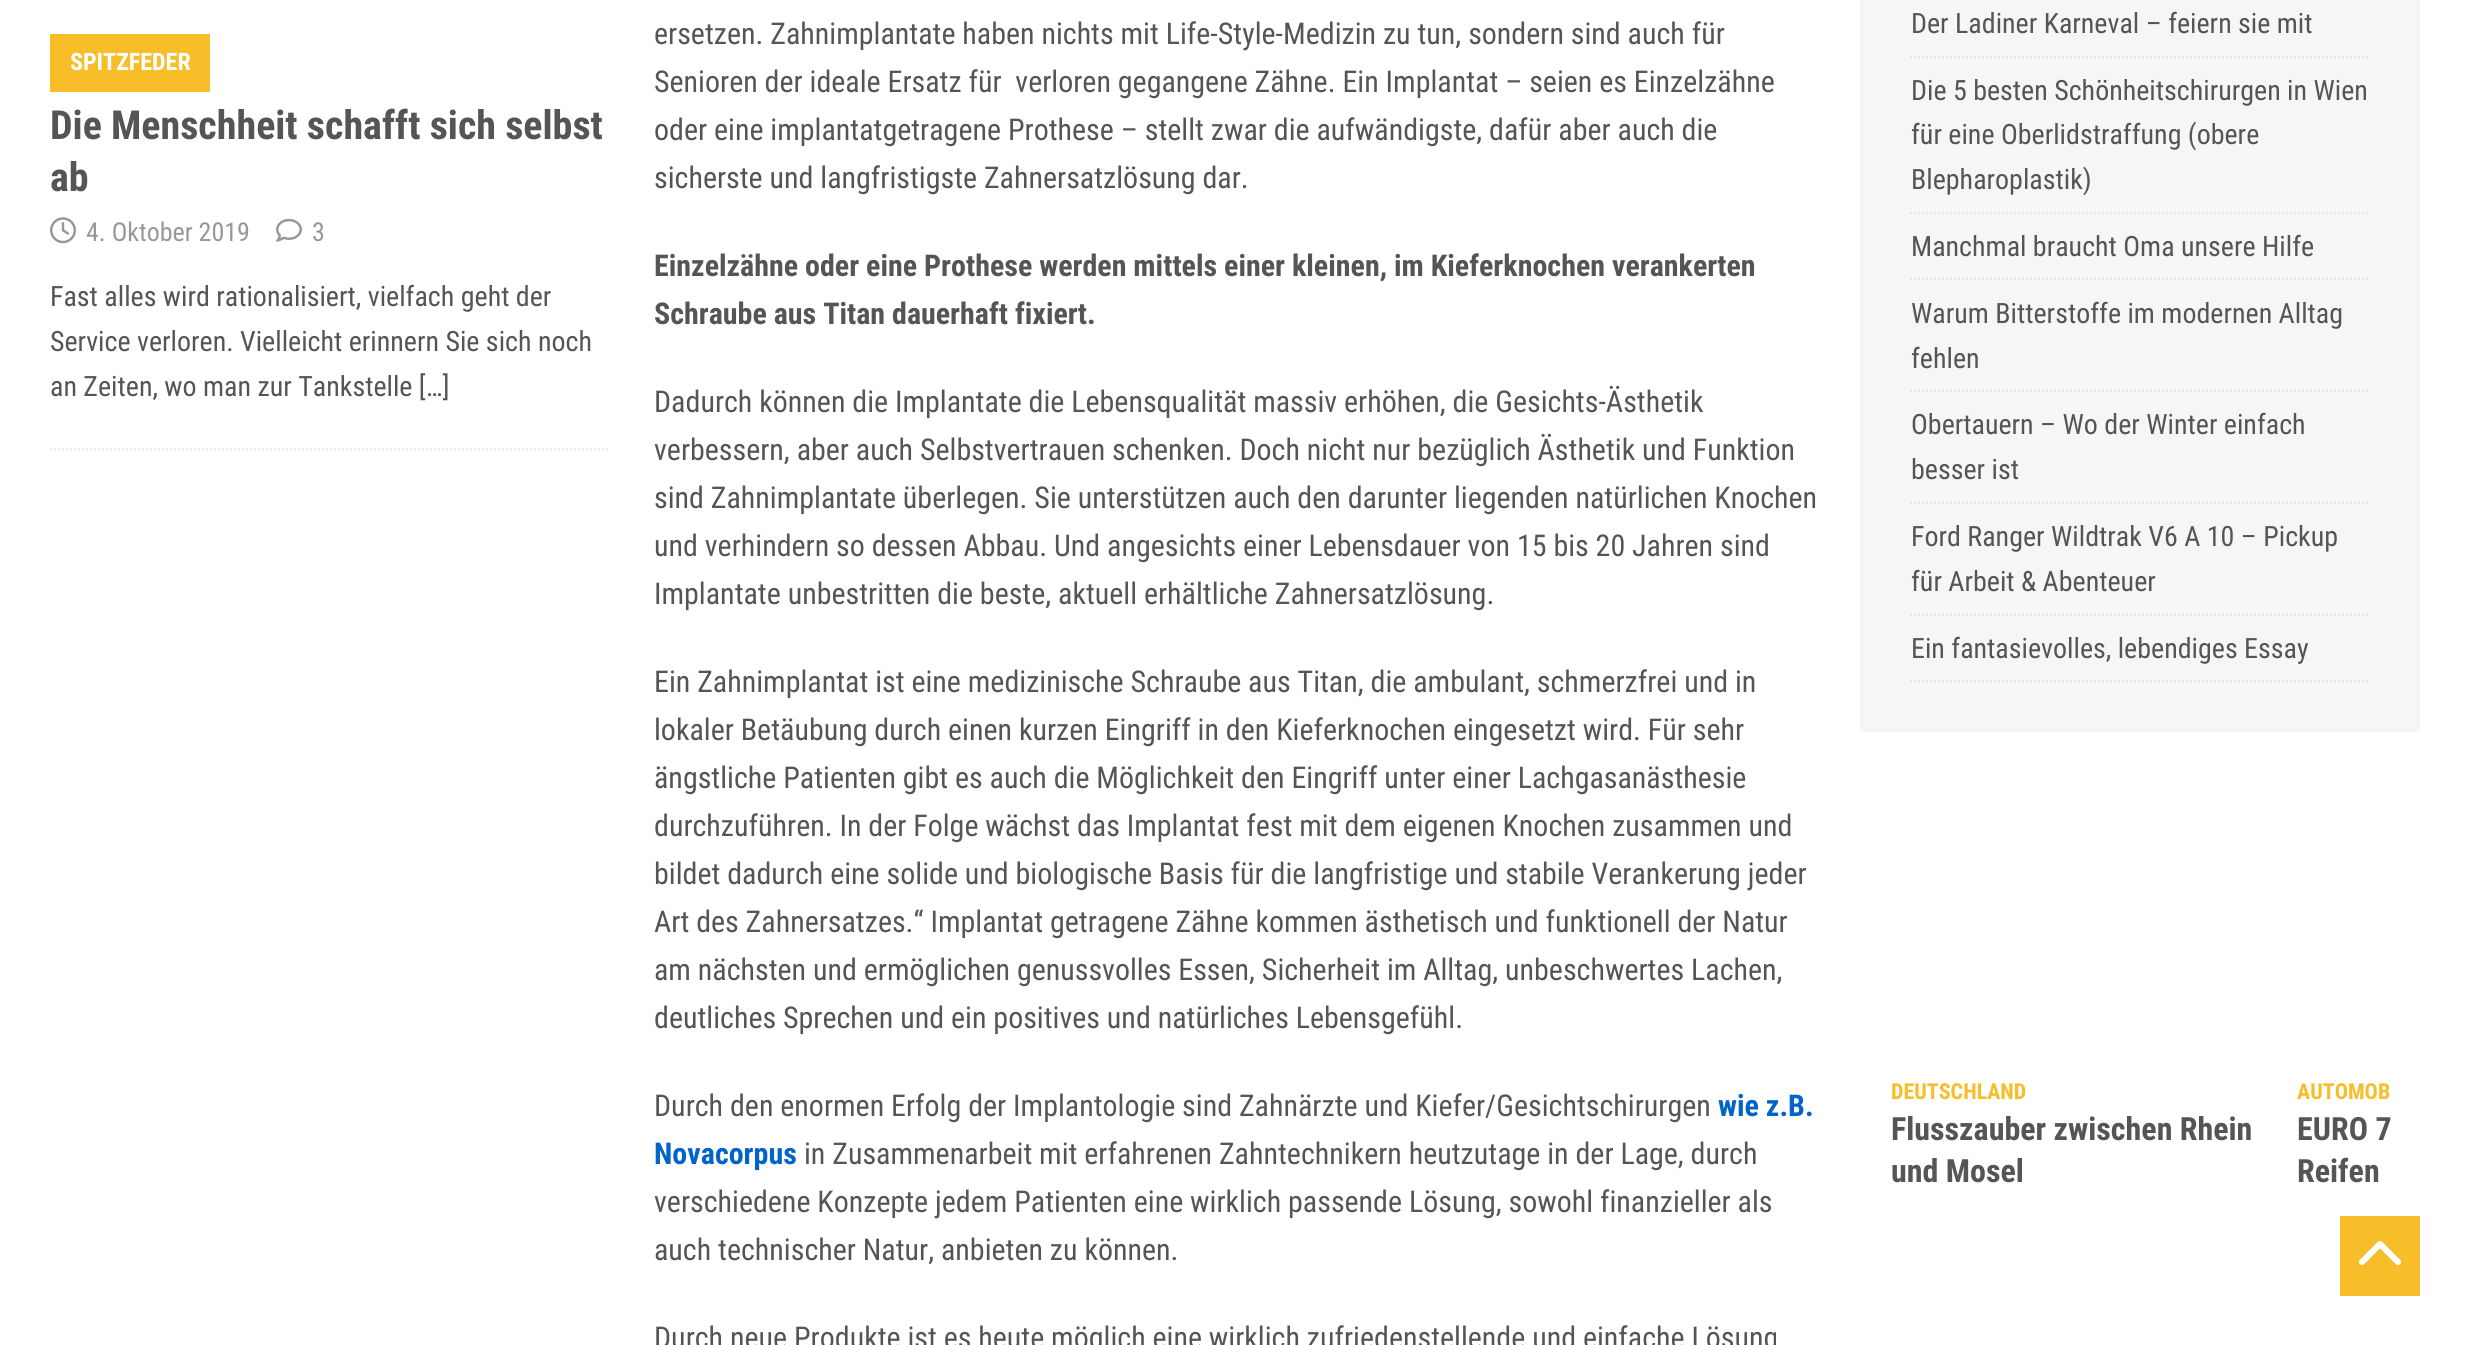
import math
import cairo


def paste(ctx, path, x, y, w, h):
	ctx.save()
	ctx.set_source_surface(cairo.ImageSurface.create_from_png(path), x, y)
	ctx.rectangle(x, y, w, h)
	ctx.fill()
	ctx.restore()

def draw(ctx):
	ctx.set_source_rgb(1, 1, 1)
	ctx.paint()
	ctx.new_path()
	ctx.move_to(50, 449)
	ctx.line_to(610, 449)
	ctx.set_source_rgb(0.922, 0.922, 0.922)
	ctx.set_dash([2, 2])
	ctx.stroke()
	ctx.set_source_rgb(0.965, 0.745, 0.161)
	ctx.rectangle(50, 34, 160, 58)
	ctx.fill()
	ctx.select_font_face('Roboto Condensed', cairo.FONT_SLANT_NORMAL, cairo.FONT_WEIGHT_BOLD)
	ctx.set_font_size(24)
	ctx.set_source_rgb(1, 1, 1)
	ctx.move_to(70, 70)
	ctx.show_text('SPITZFEDER')
	ctx.set_font_size(40)
	ctx.set_source_rgb(0.333, 0.333, 0.333)
	ctx.move_to(50, 139)
	ctx.show_text('Die Menschheit schafft sich selbst')
	ctx.move_to(50, 191)
	ctx.show_text('ab')
	paste(ctx, 'media/1.png', 50, 217, 26, 27)
	ctx.select_font_face('Roboto Condensed')
	ctx.set_font_size(26)
	ctx.set_source_rgb(0.592, 0.592, 0.592)
	ctx.move_to(86, 241)
	ctx.show_text('4. Oktober 2019')
	paste(ctx, 'media/2.png', 276, 218, 26, 24)
	ctx.move_to(312, 241)
	ctx.show_text('3')
	ctx.set_font_size(28)
	ctx.set_source_rgb(0.333, 0.333, 0.333)
	for x, y, s in [
		(50, 306, 'Fast alles wird rationalisiert, vielfach geht der'),
		(50, 351, 'Service verloren. Vielleicht erinnern Sie sich noch'),
		(50, 396, 'an Zeiten, wo man zur Tankstelle […]'),
	]:
		ctx.move_to(x, y)
		ctx.show_text(s)
	ctx.set_font_size(30)
	for x, y, s in [
		(654, 44, 'ersetzen. Zahnimplantate haben nichts mit Life-Style-Medizin zu tun, sondern sind auch für'),
		(654, 92, 'Senioren der ideale Ersatz für  verloren gegangene Zähne. Ein Implantat – seien es Einzelzähne'),
		(654, 140, 'oder eine implantatgetragene Prothese – stellt zwar die aufwändigste, dafür aber auch die'),
		(654, 188, 'sicherste und langfristigste Zahnersatzlösung dar.'),
	]:
		ctx.move_to(x, y)
		ctx.show_text(s)
	ctx.select_font_face('Roboto Condensed', cairo.FONT_SLANT_NORMAL, cairo.FONT_WEIGHT_BOLD)
	ctx.move_to(654, 276)
	ctx.show_text('Einzelzähne oder eine Prothese werden mittels einer kleinen, im Kieferknochen verankerten')
	ctx.move_to(654, 324)
	ctx.show_text('Schraube aus Titan dauerhaft fixiert.')
	ctx.select_font_face('Roboto Condensed')
	for x, y, s in [
		(654, 412, 'Dadurch können die Implantate die Lebensqualität massiv erhöhen, die Gesichts-Ästhetik'),
		(654, 460, 'verbessern, aber auch Selbstvertrauen schenken. Doch nicht nur bezüglich Ästhetik und Funktion'),
		(654, 508, 'sind Zahnimplantate überlegen. Sie unterstützen auch den darunter liegenden natürlichen Knochen'),
		(654, 556, 'und verhindern so dessen Abbau. Und angesichts einer Lebensdauer von 15 bis 20 Jahren sind'),
		(654, 604, 'Implantate unbestritten die beste, aktuell erhältliche Zahnersatzlösung.'),
		(654, 692, 'Ein Zahnimplantat ist eine medizinische Schraube aus Titan, die ambulant, schmerzfrei und in'),
		(654, 740, 'lokaler Betäubung durch einen kurzen Eingriff in den Kieferknochen eingesetzt wird. Für sehr'),
		(654, 788, 'ängstliche Patienten gibt es auch die Möglichkeit den Eingriff unter einer Lachgasanästhesie'),
		(654, 836, 'durchzuführen. In der Folge wächst das Implantat fest mit dem eigenen Knochen zusammen und'),
		(654, 884, 'bildet dadurch eine solide und biologische Basis für die langfristige und stabile Verankerung jeder'),
		(654, 932, 'Art des Zahnersatzes.“ Implantat getragene Zähne kommen ästhetisch und funktionell der Natur'),
		(654, 980, 'am nächsten und ermöglichen genussvolles Essen, Sicherheit im Alltag, unbeschwertes Lachen,'),
		(654, 1028, 'deutliches Sprechen und ein positives und natürliches Lebensgefühl.'),
		(654, 1116, 'Durch den enormen Erfolg der Implantologie sind Zahnärzte und Kiefer/Gesichtschirurgen'),
	]:
		ctx.move_to(x, y)
		ctx.show_text(s)
	ctx.select_font_face('Roboto Condensed', cairo.FONT_SLANT_NORMAL, cairo.FONT_WEIGHT_BOLD)
	ctx.set_source_rgb(0, 0.392, 0.788)
	ctx.move_to(1718, 1116)
	ctx.show_text('wie z.B.')
	ctx.move_to(654, 1164)
	ctx.show_text('Novacorpus')
	ctx.select_font_face('Roboto Condensed')
	ctx.set_source_rgb(0.333, 0.333, 0.333)
	for x, y, s in [
		(804, 1164, 'in Zusammenarbeit mit erfahrenen Zahntechnikern heutzutage in der Lage, durch'),
		(654, 1212, 'verschiedene Konzepte jedem Patienten eine wirklich passende Lösung, sowohl finanzieller als'),
		(654, 1260, 'auch technischer Natur, anbieten zu können.'),
		(654, 1348, 'Durch neue Produkte ist es heute möglich eine wirklich zufriedenstellende und einfache Lösung'),
	]:
		ctx.move_to(x, y)
		ctx.show_text(s)
	ctx.set_source_rgb(0.961, 0.961, 0.961)
	ctx.rectangle(1860, 0, 560, 732)
	ctx.fill()
	ctx.new_path()
	ctx.move_to(1910, 57)
	ctx.line_to(2370, 57)
	ctx.set_source_rgb(0.898, 0.898, 0.898)
	ctx.stroke()
	ctx.set_font_size(28)
	ctx.set_source_rgb(0.333, 0.333, 0.333)
	ctx.move_to(1911, 33)
	ctx.show_text('Der Ladiner Karneval – feiern sie mit')
	ctx.new_path()
	ctx.move_to(1910, 213)
	ctx.line_to(2370, 213)
	ctx.set_source_rgb(0.898, 0.898, 0.898)
	ctx.stroke()
	ctx.set_source_rgb(0.333, 0.333, 0.333)
	for x, y, s in [
		(1911, 100, 'Die 5 besten Schönheitschirurgen in Wien'),
		(1911, 144, 'für eine Oberlidstraffung (obere'),
		(1911, 189, 'Blepharoplastik)'),
	]:
		ctx.move_to(x, y)
		ctx.show_text(s)
	ctx.new_path()
	ctx.move_to(1910, 279)
	ctx.line_to(2370, 279)
	ctx.set_source_rgb(0.898, 0.898, 0.898)
	ctx.stroke()
	ctx.set_source_rgb(0.333, 0.333, 0.333)
	ctx.move_to(1911, 256)
	ctx.show_text('Manchmal braucht Oma unsere Hilfe')
	ctx.new_path()
	ctx.move_to(1910, 391)
	ctx.line_to(2370, 391)
	ctx.set_source_rgb(0.898, 0.898, 0.898)
	ctx.stroke()
	ctx.set_source_rgb(0.333, 0.333, 0.333)
	ctx.move_to(1911, 323)
	ctx.show_text('Warum Bitterstoffe im modernen Alltag')
	ctx.move_to(1911, 368)
	ctx.show_text('fehlen')
	ctx.new_path()
	ctx.move_to(1910, 503)
	ctx.line_to(2370, 503)
	ctx.set_source_rgb(0.898, 0.898, 0.898)
	ctx.stroke()
	ctx.set_source_rgb(0.333, 0.333, 0.333)
	ctx.move_to(1911, 434)
	ctx.show_text('Obertauern – Wo der Winter einfach')
	ctx.move_to(1911, 479)
	ctx.show_text('besser ist')
	ctx.new_path()
	ctx.move_to(1910, 615)
	ctx.line_to(2370, 615)
	ctx.set_source_rgb(0.898, 0.898, 0.898)
	ctx.stroke()
	ctx.set_source_rgb(0.333, 0.333, 0.333)
	ctx.move_to(1911, 546)
	ctx.show_text('Ford Ranger Wildtrak V6 A 10 – Pickup')
	ctx.move_to(1911, 591)
	ctx.show_text('für Arbeit & Abenteuer')
	ctx.new_path()
	ctx.move_to(1910, 681)
	ctx.line_to(2370, 681)
	ctx.set_source_rgb(0.898, 0.898, 0.898)
	ctx.stroke()
	ctx.set_source_rgb(0.333, 0.333, 0.333)
	ctx.move_to(1911, 658)
	ctx.show_text('Ein fantasievolles, lebendiges Essay')
	ctx.select_font_face('Roboto Condensed', cairo.FONT_SLANT_NORMAL, cairo.FONT_WEIGHT_BOLD)
	ctx.set_font_size(22)
	ctx.set_source_rgb(0.965, 0.745, 0.161)
	ctx.move_to(1891, 1099)
	ctx.show_text('DEUTSCHLAND')
	ctx.set_font_size(32)
	ctx.set_source_rgb(0.333, 0.333, 0.333)
	ctx.move_to(1891, 1140)
	ctx.show_text('Flusszauber zwischen Rhein')
	ctx.move_to(1891, 1182)
	ctx.show_text('und Mosel')
	ctx.set_font_size(22)
	ctx.set_source_rgb(0.965, 0.745, 0.161)
	ctx.move_to(2297, 1099)
	ctx.show_text('AUTOMOB')
	ctx.set_font_size(32)
	ctx.set_source_rgb(0.333, 0.333, 0.333)
	ctx.move_to(2297, 1140)
	ctx.show_text('EURO 7')
	ctx.move_to(2297, 1182)
	ctx.show_text('Reifen')
	ctx.set_source_rgb(0.965, 0.745, 0.161)
	ctx.rectangle(2340, 1216, 80, 80)
	ctx.fill()
	paste(ctx, 'media/3.png', 2359, 1241, 42, 24)


surface = cairo.ImageSurface(cairo.FORMAT_RGB24, 2469, 1345)
ctx = cairo.Context(surface)
options = cairo.FontOptions()
options.set_hint_metrics(cairo.HINT_METRICS_OFF)
options.set_hint_style(cairo.HINT_STYLE_NONE)
ctx.set_font_options(options)
ctx.set_miter_limit(4)
draw(ctx)
surface.write_to_png('image.png')
